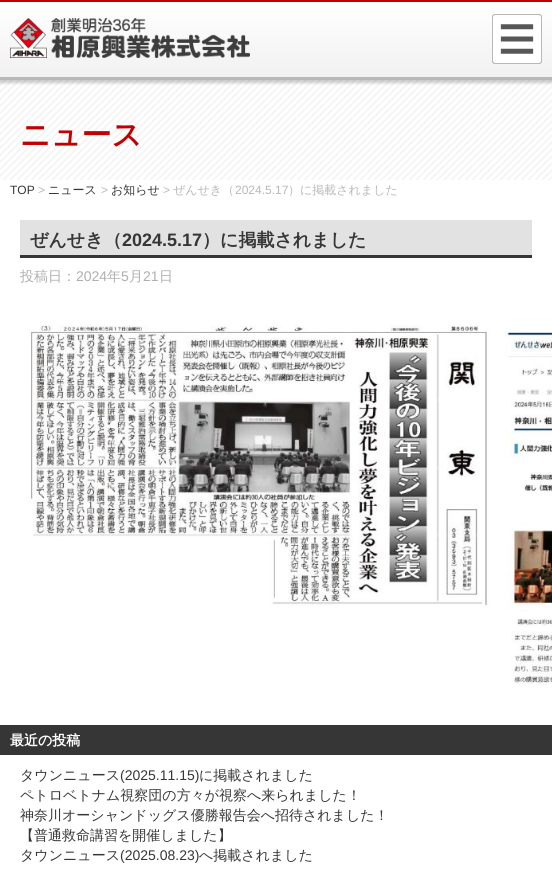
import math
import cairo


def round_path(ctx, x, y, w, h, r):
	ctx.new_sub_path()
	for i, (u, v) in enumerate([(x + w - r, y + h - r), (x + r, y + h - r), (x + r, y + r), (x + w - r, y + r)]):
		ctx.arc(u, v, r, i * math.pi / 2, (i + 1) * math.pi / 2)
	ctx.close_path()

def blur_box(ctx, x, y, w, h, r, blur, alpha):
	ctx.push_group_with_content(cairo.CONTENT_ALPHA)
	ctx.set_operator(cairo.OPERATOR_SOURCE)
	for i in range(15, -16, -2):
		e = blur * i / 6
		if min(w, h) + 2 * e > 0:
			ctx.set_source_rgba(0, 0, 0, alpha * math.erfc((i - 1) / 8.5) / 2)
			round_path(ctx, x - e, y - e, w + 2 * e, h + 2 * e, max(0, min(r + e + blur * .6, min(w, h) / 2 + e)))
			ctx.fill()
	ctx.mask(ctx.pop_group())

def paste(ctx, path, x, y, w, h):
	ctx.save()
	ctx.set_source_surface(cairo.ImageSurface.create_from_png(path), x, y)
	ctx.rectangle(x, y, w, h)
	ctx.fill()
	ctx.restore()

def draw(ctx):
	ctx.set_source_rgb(1, 1, 1)
	ctx.paint()
	paste(ctx, 'media/3.png', 0, 80, 552, 100)
	ctx.set_source_rgb(0, 0, 0)
	blur_box(ctx, -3, -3, 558, 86, 0, 1.5, 0.2)
	gradient = cairo.LinearGradient(276, 2, 276, 77)
	gradient.add_color_stop_rgba(0, 1, 1, 1, 1)
	gradient.add_color_stop_rgba(1, 0.945, 0.945, 0.945, 1)
	ctx.set_source(gradient)
	ctx.rectangle(0, 2, 552, 75)
	ctx.fill()
	ctx.set_source_rgb(0.765, 0, 0.004)
	ctx.rectangle(0, 0, 552, 2)
	ctx.fill()
	ctx.set_source_rgb(0.722, 0.722, 0.722)
	ctx.rectangle(0, 77, 552, 3)
	ctx.fill()
	paste(ctx, 'media/1.png', 10, 18, 240, 40)
	paste(ctx, 'media/2.png', 492, 14, 50, 50)
	ctx.select_font_face('WenQuanYi Zen Hei', cairo.FONT_SLANT_NORMAL, cairo.FONT_WEIGHT_BOLD)
	ctx.set_font_size(30)
	ctx.set_source_rgb(0.765, 0, 0.004)
	ctx.move_to(20, 145)
	ctx.show_text('ニュース')
	ctx.select_font_face('Liberation Sans')
	ctx.set_font_size(12)
	ctx.set_source_rgb(0.212, 0.212, 0.212)
	ctx.move_to(10, 194)
	ctx.show_text('TOP')
	ctx.set_source_rgb(0.722, 0.722, 0.722)
	ctx.move_to(38, 194)
	ctx.show_text('>')
	ctx.select_font_face('WenQuanYi Zen Hei Medium')
	ctx.set_source_rgb(0.212, 0.212, 0.212)
	ctx.move_to(48, 194)
	ctx.show_text('ニュース')
	ctx.select_font_face('Liberation Sans')
	ctx.set_source_rgb(0.722, 0.722, 0.722)
	ctx.move_to(101, 194)
	ctx.show_text('>')
	ctx.select_font_face('WenQuanYi Zen Hei Medium')
	ctx.set_source_rgb(0.212, 0.212, 0.212)
	ctx.move_to(111, 194)
	ctx.show_text('お知らせ')
	ctx.select_font_face('Liberation Sans')
	ctx.set_source_rgb(0.722, 0.722, 0.722)
	ctx.move_to(163, 194)
	ctx.show_text('>')
	ctx.select_font_face('WenQuanYi Zen Hei Medium')
	ctx.move_to(173, 194)
	ctx.show_text('ぜんせき（')
	ctx.select_font_face('Liberation Sans')
	ctx.move_to(235, 194)
	ctx.show_text('2024.5.17')
	ctx.select_font_face('WenQuanYi Zen Hei Medium')
	ctx.move_to(288, 194)
	ctx.show_text('）に掲載されました')
	ctx.set_source_rgb(0.886, 0.886, 0.886)
	ctx.rectangle(20, 220, 512, 35)
	ctx.fill()
	ctx.set_source_rgb(0.212, 0.212, 0.212)
	ctx.rectangle(20, 255, 512, 3)
	ctx.fill()
	ctx.select_font_face('WenQuanYi Zen Hei', cairo.FONT_SLANT_NORMAL, cairo.FONT_WEIGHT_BOLD)
	ctx.set_font_size(18)
	ctx.move_to(30, 246)
	ctx.show_text('ぜんせき（')
	ctx.select_font_face('Liberation Sans', cairo.FONT_SLANT_NORMAL, cairo.FONT_WEIGHT_BOLD)
	ctx.move_to(122, 246)
	ctx.show_text('2024.5.17')
	ctx.select_font_face('WenQuanYi Zen Hei', cairo.FONT_SLANT_NORMAL, cairo.FONT_WEIGHT_BOLD)
	ctx.move_to(202, 246)
	ctx.show_text('）に掲載されました')
	ctx.select_font_face('WenQuanYi Zen Hei Medium')
	ctx.set_font_size(14)
	ctx.set_source_rgb(0.686, 0.686, 0.686)
	ctx.move_to(20, 281)
	ctx.show_text('投稿日：')
	ctx.select_font_face('Liberation Sans')
	ctx.move_to(76, 281)
	ctx.show_text('2024')
	ctx.select_font_face('WenQuanYi Zen Hei Medium')
	ctx.move_to(107, 281)
	ctx.show_text('年')
	ctx.select_font_face('Liberation Sans')
	ctx.move_to(121, 281)
	ctx.show_text('5')
	ctx.select_font_face('WenQuanYi Zen Hei Medium')
	ctx.move_to(129, 281)
	ctx.show_text('月')
	ctx.select_font_face('Liberation Sans')
	ctx.move_to(143, 281)
	ctx.show_text('21')
	ctx.select_font_face('WenQuanYi Zen Hei Medium')
	ctx.move_to(159, 281)
	ctx.show_text('日')
	paste(ctx, 'media/4.png', 27, 325, 525, 360)
	ctx.set_source_rgb(0.212, 0.212, 0.212)
	ctx.rectangle(0, 725, 552, 30)
	ctx.fill()
	ctx.select_font_face('WenQuanYi Zen Hei', cairo.FONT_SLANT_NORMAL, cairo.FONT_WEIGHT_BOLD)
	ctx.set_source_rgb(1, 1, 1)
	ctx.move_to(10, 745)
	ctx.show_text('最近の投稿')
	ctx.select_font_face('WenQuanYi Zen Hei Medium')
	ctx.set_source_rgb(0.212, 0.212, 0.212)
	ctx.move_to(20, 780)
	ctx.show_text('タウンニュース')
	ctx.select_font_face('Liberation Sans')
	ctx.move_to(120, 780)
	ctx.show_text('(2025.11.15)')
	ctx.select_font_face('WenQuanYi Zen Hei Medium')
	for x, y, s in [
		(199, 780, 'に掲載されました'),
		(20, 800, 'ペトロベトナム視察団の方々が視察へ来られました！'),
		(20, 820, '神奈川オーシャンドッグス優勝報告会へ招待されました！'),
		(20, 840, '【普通救命講習を開催しました】'),
		(20, 860, 'タウンニュース'),
	]:
		ctx.move_to(x, y)
		ctx.show_text(s)
	ctx.select_font_face('Liberation Sans')
	ctx.move_to(120, 860)
	ctx.show_text('(2025.08.23)')
	ctx.select_font_face('WenQuanYi Zen Hei Medium')
	ctx.move_to(199, 860)
	ctx.show_text('へ掲載されました')


surface = cairo.ImageSurface(cairo.FORMAT_RGB24, 552, 871)
ctx = cairo.Context(surface)
options = cairo.FontOptions()
options.set_hint_metrics(cairo.HINT_METRICS_OFF)
options.set_hint_style(cairo.HINT_STYLE_NONE)
ctx.set_font_options(options)
ctx.set_miter_limit(4)
draw(ctx)
surface.write_to_png('image.png')
